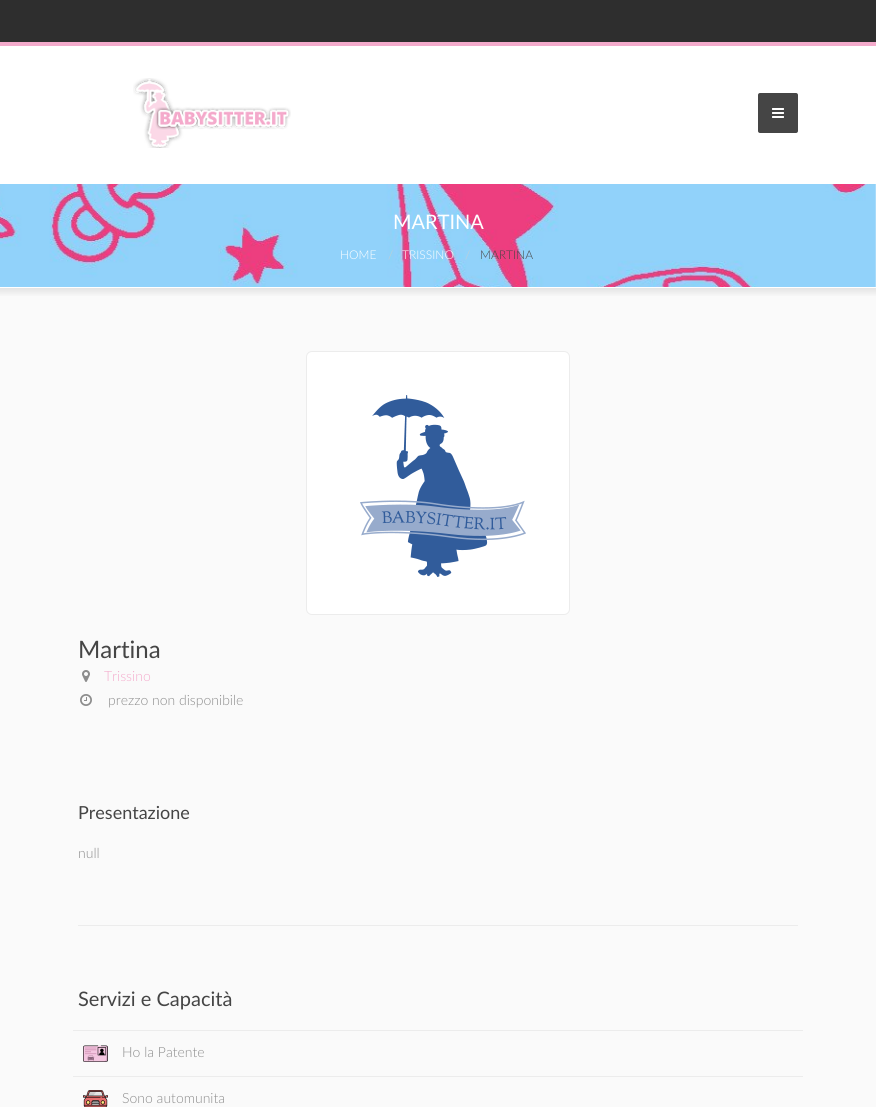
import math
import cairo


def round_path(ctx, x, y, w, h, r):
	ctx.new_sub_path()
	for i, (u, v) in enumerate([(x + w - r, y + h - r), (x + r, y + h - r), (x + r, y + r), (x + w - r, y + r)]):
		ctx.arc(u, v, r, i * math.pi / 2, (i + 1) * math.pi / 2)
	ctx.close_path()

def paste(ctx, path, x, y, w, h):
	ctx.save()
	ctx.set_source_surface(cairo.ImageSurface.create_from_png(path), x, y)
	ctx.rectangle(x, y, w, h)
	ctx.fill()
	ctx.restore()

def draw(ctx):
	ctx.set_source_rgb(0.98, 0.98, 0.98)
	ctx.paint()
	ctx.set_source_rgb(0.18, 0.18, 0.18)
	ctx.rectangle(0, 0, 876, 42)
	ctx.fill()
	ctx.set_source_rgb(1, 1, 1)
	ctx.rectangle(0, 46, 876, 138)
	ctx.fill()
	ctx.set_source_rgb(0.957, 0.671, 0.8)
	ctx.rectangle(0, 42, 876, 4)
	ctx.fill()
	paste(ctx, 'media/1.png', 133, 78, 158, 70)
	ctx.set_source_rgb(0.271, 0.271, 0.271)
	round_path(ctx, 758, 93, 40, 40, 2)
	ctx.fill()
	paste(ctx, 'media/2.png', 772, 108, 12, 10)
	paste(ctx, 'media/3.png', 0, 184, 876, 103)
	ctx.select_font_face('Lato')
	ctx.set_font_size(20)
	ctx.set_source_rgb(1, 1, 1)
	ctx.move_to(393, 229)
	ctx.show_text('MARTINA')
	ctx.select_font_face('Lato Light')
	ctx.set_font_size(12)
	ctx.move_to(340, 259)
	ctx.show_text('HOME')
	ctx.set_source_rgb(0.8, 0.8, 0.8)
	ctx.move_to(388, 259)
	ctx.show_text('/')
	ctx.set_source_rgb(1, 1, 1)
	ctx.move_to(402, 259)
	ctx.show_text('TRISSINO')
	ctx.set_source_rgb(0.8, 0.8, 0.8)
	ctx.move_to(465, 259)
	ctx.show_text('/')
	ctx.set_source_rgb(0.271, 0.271, 0.271)
	ctx.move_to(480, 259)
	ctx.show_text('MARTINA')
	ctx.set_source_rgb(1, 1, 1)
	ctx.rectangle(0, 287, 876, 1)
	ctx.fill()
	gradient = cairo.LinearGradient(438, 287, 438, 297)
	gradient.add_color_stop_rgba(0, 0.882, 0.882, 0.882, 1)
	gradient.add_color_stop_rgba(1, 0.98, 0.98, 0.98, 1)
	ctx.set_source(gradient)
	ctx.rectangle(0, 288, 876, 8)
	ctx.fill()
	ctx.set_source_rgb(1, 1, 1)
	round_path(ctx, 306.5, 351.5, 263, 263, 5.5)
	ctx.fill_preserve()
	ctx.set_source_rgb(0.922, 0.922, 0.922)
	ctx.set_line_width(1)
	ctx.stroke()
	paste(ctx, 'media/4.png', 360, 395, 166, 182)
	ctx.select_font_face('Lato')
	ctx.set_font_size(24)
	ctx.set_source_rgb(0.271, 0.271, 0.271)
	ctx.move_to(78, 658)
	ctx.show_text('Martina')
	paste(ctx, 'media/5.png', 82, 670, 8, 12)
	ctx.select_font_face('Lato Light')
	ctx.set_font_size(14)
	ctx.set_source_rgb(0.957, 0.671, 0.8)
	ctx.move_to(104, 681)
	ctx.show_text('Trissino')
	paste(ctx, 'media/6.png', 80, 694, 12, 12)
	ctx.set_source_rgb(0.549, 0.549, 0.549)
	ctx.move_to(108, 705)
	ctx.show_text('prezzo non disponibile')
	ctx.select_font_face('Lato')
	ctx.set_font_size(18)
	ctx.set_source_rgb(0.271, 0.271, 0.271)
	ctx.move_to(78, 819)
	ctx.show_text('Presentazione')
	ctx.select_font_face('Lato Light')
	ctx.set_font_size(14)
	ctx.set_source_rgb(0.549, 0.549, 0.549)
	ctx.move_to(78, 858)
	ctx.show_text('null')
	ctx.set_source_rgb(0.922, 0.922, 0.922)
	ctx.rectangle(78, 925, 720, 1)
	ctx.fill()
	ctx.select_font_face('Lato')
	ctx.set_font_size(20)
	ctx.set_source_rgb(0.271, 0.271, 0.271)
	ctx.move_to(78, 1006)
	ctx.show_text('Servizi e Capacità')
	ctx.set_source_rgb(0.922, 0.922, 0.922)
	ctx.rectangle(73, 1030, 730, 1)
	ctx.fill()
	ctx.rectangle(73, 1076, 730, 1)
	ctx.fill()
	paste(ctx, 'media/7.png', 83, 1045, 25, 17)
	ctx.select_font_face('Lato Light')
	ctx.set_font_size(14)
	ctx.set_source_rgb(0.549, 0.549, 0.549)
	ctx.move_to(122, 1057)
	ctx.show_text('Ho la Patente')
	paste(ctx, 'media/8.png', 83, 1090, 25, 17)
	ctx.move_to(122, 1103)
	ctx.show_text('Sono automunita')


surface = cairo.ImageSurface(cairo.FORMAT_RGB24, 876, 1107)
ctx = cairo.Context(surface)
options = cairo.FontOptions()
options.set_hint_metrics(cairo.HINT_METRICS_OFF)
options.set_hint_style(cairo.HINT_STYLE_NONE)
ctx.set_font_options(options)
ctx.set_miter_limit(4)
draw(ctx)
surface.write_to_png('image.png')
